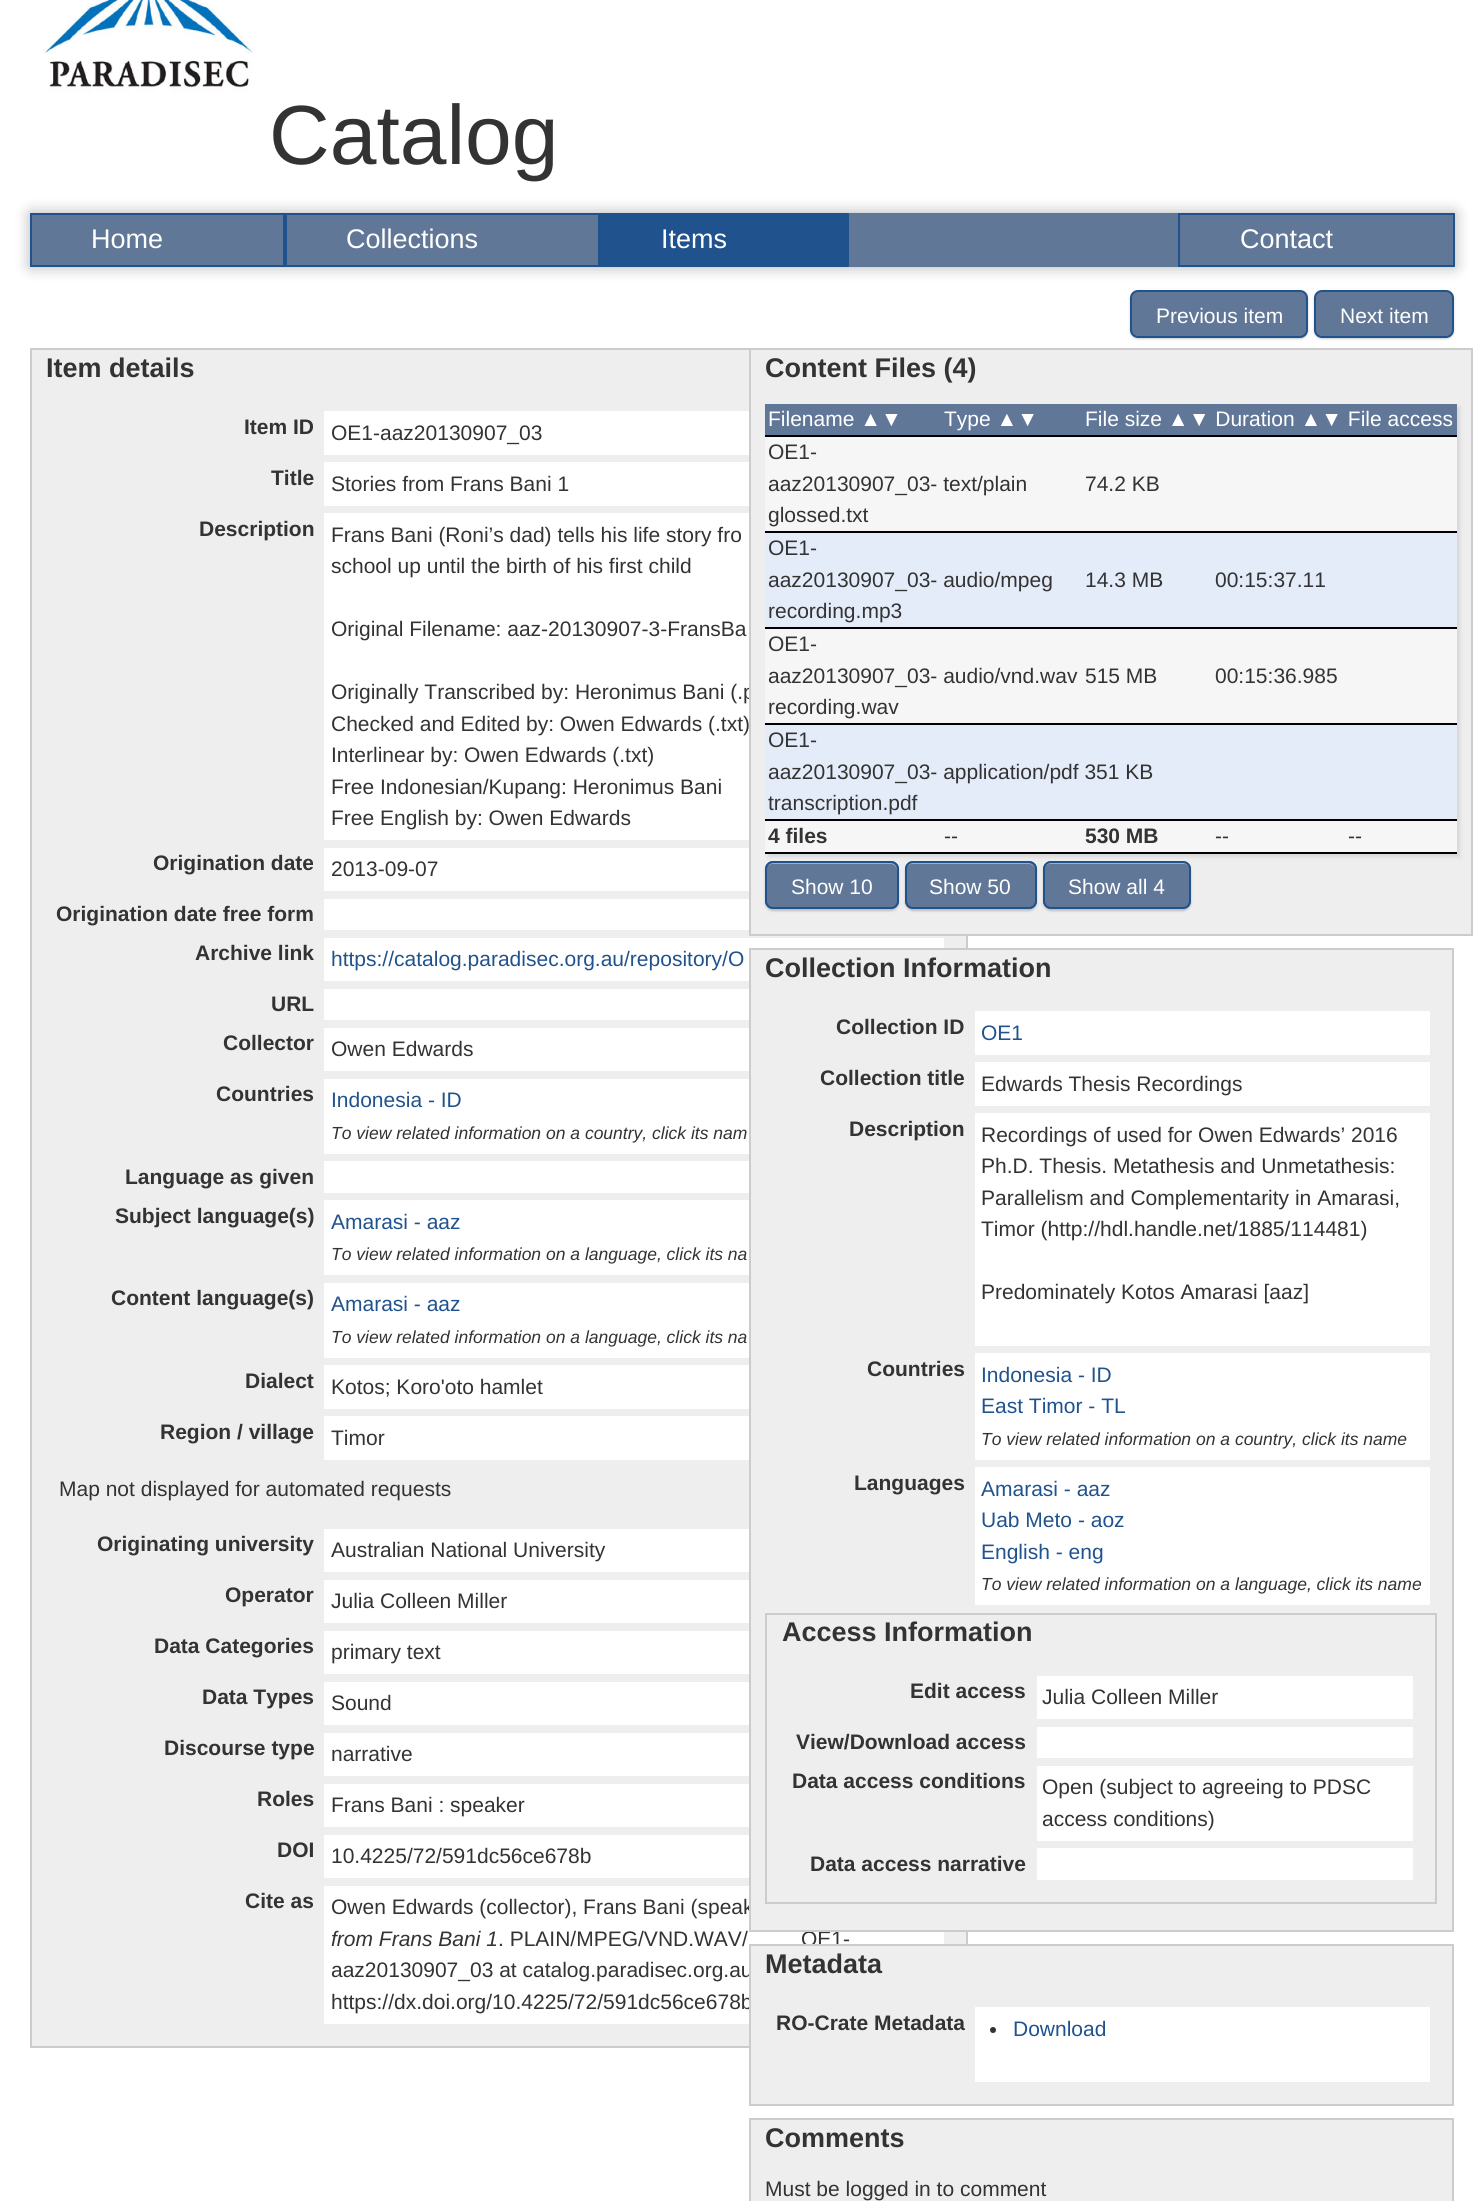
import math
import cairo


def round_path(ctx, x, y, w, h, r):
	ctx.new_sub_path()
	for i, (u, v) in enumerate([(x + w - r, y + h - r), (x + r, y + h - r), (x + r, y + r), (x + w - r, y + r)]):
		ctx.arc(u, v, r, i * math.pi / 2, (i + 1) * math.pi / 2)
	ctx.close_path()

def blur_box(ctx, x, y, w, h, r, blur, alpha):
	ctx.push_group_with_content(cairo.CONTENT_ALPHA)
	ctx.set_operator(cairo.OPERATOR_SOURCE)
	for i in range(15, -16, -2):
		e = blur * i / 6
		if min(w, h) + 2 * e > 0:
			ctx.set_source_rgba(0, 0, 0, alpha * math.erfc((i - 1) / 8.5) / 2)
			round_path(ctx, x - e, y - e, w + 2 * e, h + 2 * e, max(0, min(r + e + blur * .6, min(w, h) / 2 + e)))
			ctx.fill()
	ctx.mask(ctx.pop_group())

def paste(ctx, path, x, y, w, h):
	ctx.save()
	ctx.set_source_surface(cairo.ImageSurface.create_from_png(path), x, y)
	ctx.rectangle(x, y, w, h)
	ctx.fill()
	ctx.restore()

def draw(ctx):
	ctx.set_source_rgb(1, 1, 1)
	ctx.paint()
	paste(ctx, 'media/1.png', 43, 0, 214, 92)
	ctx.select_font_face('Liberation Sans')
	ctx.set_font_size(84)
	ctx.set_source_rgb(0.2, 0.2, 0.2)
	ctx.move_to(269, 164)
	ctx.show_text('Catalog')
	ctx.set_source_rgb(0, 0, 0)
	blur_box(ctx, 30, 213, 1425, 54, 0, 7.5, 0.3)
	ctx.set_source_rgb(0.38, 0.467, 0.596)
	ctx.rectangle(32, 213, 1421, 54)
	ctx.fill()
	ctx.rectangle(31, 214, 253, 52)
	ctx.set_source_rgb(0.125, 0.325, 0.553)
	ctx.stroke()
	ctx.set_font_size(27)
	ctx.set_source_rgb(1, 1, 1)
	ctx.move_to(91, 248)
	ctx.show_text('Home')
	ctx.rectangle(286, 214, 313, 52)
	ctx.set_source_rgb(0.125, 0.325, 0.553)
	ctx.stroke()
	ctx.set_source_rgb(1, 1, 1)
	ctx.move_to(346, 248)
	ctx.show_text('Collections')
	ctx.set_source_rgb(0.125, 0.325, 0.553)
	ctx.rectangle(600, 213, 249, 54)
	ctx.fill()
	ctx.set_source_rgb(1, 1, 1)
	ctx.move_to(661, 248)
	ctx.show_text('Items')
	ctx.rectangle(1179, 214, 275, 52)
	ctx.set_source_rgb(0.125, 0.325, 0.553)
	ctx.stroke()
	ctx.set_source_rgb(1, 1, 1)
	ctx.move_to(1240, 248)
	ctx.show_text('Contact')
	ctx.set_source_rgb(0, 0, 0)
	blur_box(ctx, 1130, 291, 178, 48, 8, 1, 0.2)
	ctx.set_source_rgb(0.38, 0.467, 0.596)
	round_path(ctx, 1131, 291, 176, 46, 7)
	ctx.fill_preserve()
	ctx.set_source_rgb(0.125, 0.325, 0.553)
	ctx.stroke()
	ctx.set_font_size(21)
	ctx.set_source_rgb(1, 1, 1)
	ctx.move_to(1156, 323)
	ctx.show_text('Previous item')
	ctx.set_source_rgb(0, 0, 0)
	blur_box(ctx, 1314, 291, 140, 48, 8, 1, 0.2)
	ctx.set_source_rgb(0.38, 0.467, 0.596)
	round_path(ctx, 1315, 291, 138, 46, 7)
	ctx.fill_preserve()
	ctx.set_source_rgb(0.125, 0.325, 0.553)
	ctx.stroke()
	ctx.set_source_rgb(1, 1, 1)
	ctx.move_to(1340, 323)
	ctx.show_text('Next item')
	ctx.set_source_rgb(0.933, 0.933, 0.933)
	ctx.rectangle(31, 349, 936, 1698)
	ctx.fill_preserve()
	ctx.set_source_rgb(0.8, 0.8, 0.8)
	ctx.stroke()
	ctx.select_font_face('Liberation Sans', cairo.FONT_SLANT_NORMAL, cairo.FONT_WEIGHT_BOLD)
	ctx.set_font_size(27)
	ctx.set_source_rgb(0.2, 0.2, 0.2)
	ctx.move_to(46, 377)
	ctx.show_text('Item details')
	ctx.set_font_size(21)
	ctx.move_to(244, 434)
	ctx.show_text('Item ID')
	ctx.set_source_rgb(1, 1, 1)
	ctx.rectangle(324, 411, 425, 44)
	ctx.fill()
	ctx.select_font_face('Liberation Sans')
	ctx.set_source_rgb(0.2, 0.2, 0.2)
	ctx.move_to(331, 440)
	ctx.show_text('OE1-aaz20130907_03')
	ctx.select_font_face('Liberation Sans', cairo.FONT_SLANT_NORMAL, cairo.FONT_WEIGHT_BOLD)
	ctx.move_to(271, 485)
	ctx.show_text('Title')
	ctx.set_source_rgb(1, 1, 1)
	ctx.rectangle(324, 462, 425, 44)
	ctx.fill()
	ctx.select_font_face('Liberation Sans')
	ctx.set_source_rgb(0.2, 0.2, 0.2)
	ctx.move_to(331, 491)
	ctx.show_text('Stories from Frans Bani 1')
	ctx.select_font_face('Liberation Sans', cairo.FONT_SLANT_NORMAL, cairo.FONT_WEIGHT_BOLD)
	ctx.move_to(199, 536)
	ctx.show_text('Description')
	ctx.set_source_rgb(1, 1, 1)
	ctx.rectangle(324, 513, 425, 327)
	ctx.fill()
	ctx.select_font_face('Liberation Sans')
	ctx.set_source_rgb(0.2, 0.2, 0.2)
	for x, y, s in [
		(331, 542, 'Frans Bani (Roni’s dad) tells his life story fro'),
		(331, 573, 'school up until the birth of his first child'),
		(331, 636, 'Original Filename: aaz-20130907-3-FransBa'),
		(331, 699, 'Originally Transcribed by: Heronimus Bani (.p'),
		(331, 731, 'Checked and Edited by: Owen Edwards (.txt)'),
		(331, 762, 'Interlinear by: Owen Edwards (.txt)'),
		(331, 794, 'Free Indonesian/Kupang: Heronimus Bani'),
		(331, 825, 'Free English by: Owen Edwards'),
	]:
		ctx.move_to(x, y)
		ctx.show_text(s)
	ctx.select_font_face('Liberation Sans', cairo.FONT_SLANT_NORMAL, cairo.FONT_WEIGHT_BOLD)
	ctx.move_to(153, 870)
	ctx.show_text('Origination date')
	ctx.set_source_rgb(1, 1, 1)
	ctx.rectangle(324, 848, 425, 43)
	ctx.fill()
	ctx.select_font_face('Liberation Sans')
	ctx.set_source_rgb(0.2, 0.2, 0.2)
	ctx.move_to(331, 876)
	ctx.show_text('2013-09-07')
	ctx.select_font_face('Liberation Sans', cairo.FONT_SLANT_NORMAL, cairo.FONT_WEIGHT_BOLD)
	ctx.move_to(56, 921)
	ctx.show_text('Origination date free form')
	ctx.set_source_rgb(1, 1, 1)
	ctx.rectangle(324, 899, 425, 31)
	ctx.fill()
	ctx.set_source_rgb(0.2, 0.2, 0.2)
	ctx.move_to(195, 960)
	ctx.show_text('Archive link')
	ctx.set_source_rgb(1, 1, 1)
	ctx.rectangle(324, 938, 620, 43)
	ctx.fill()
	ctx.select_font_face('Liberation Sans')
	ctx.set_source_rgb(0.125, 0.325, 0.553)
	ctx.move_to(331, 966)
	ctx.show_text('https://catalog.paradisec.org.au/repository/O')
	ctx.select_font_face('Liberation Sans', cairo.FONT_SLANT_NORMAL, cairo.FONT_WEIGHT_BOLD)
	ctx.set_source_rgb(0.2, 0.2, 0.2)
	ctx.move_to(271, 1011)
	ctx.show_text('URL')
	ctx.set_source_rgb(1, 1, 1)
	ctx.rectangle(324, 989, 425, 31)
	ctx.fill()
	ctx.set_source_rgb(0.2, 0.2, 0.2)
	ctx.move_to(223, 1050)
	ctx.show_text('Collector')
	ctx.set_source_rgb(1, 1, 1)
	ctx.rectangle(324, 1028, 425, 43)
	ctx.fill()
	ctx.select_font_face('Liberation Sans')
	ctx.set_source_rgb(0.2, 0.2, 0.2)
	ctx.move_to(331, 1056)
	ctx.show_text('Owen Edwards')
	ctx.select_font_face('Liberation Sans', cairo.FONT_SLANT_NORMAL, cairo.FONT_WEIGHT_BOLD)
	ctx.move_to(216, 1101)
	ctx.show_text('Countries')
	ctx.set_source_rgb(1, 1, 1)
	ctx.rectangle(324, 1079, 425, 75)
	ctx.fill()
	ctx.select_font_face('Liberation Sans')
	ctx.set_source_rgb(0.125, 0.325, 0.553)
	ctx.move_to(331, 1107)
	ctx.show_text('Indonesia - ID')
	ctx.select_font_face('Liberation Sans', cairo.FONT_SLANT_ITALIC)
	ctx.set_font_size(17.5)
	ctx.set_source_rgb(0.2, 0.2, 0.2)
	ctx.move_to(331, 1139)
	ctx.show_text('To view related information on a country, click its nam')
	ctx.select_font_face('Liberation Sans', cairo.FONT_SLANT_NORMAL, cairo.FONT_WEIGHT_BOLD)
	ctx.set_font_size(21)
	ctx.move_to(125, 1184)
	ctx.show_text('Language as given')
	ctx.set_source_rgb(1, 1, 1)
	ctx.rectangle(324, 1161, 425, 32)
	ctx.fill()
	ctx.set_source_rgb(0.2, 0.2, 0.2)
	ctx.move_to(115, 1223)
	ctx.show_text('Subject language(s)')
	ctx.set_source_rgb(1, 1, 1)
	ctx.rectangle(324, 1200, 425, 75)
	ctx.fill()
	ctx.select_font_face('Liberation Sans')
	ctx.set_source_rgb(0.125, 0.325, 0.553)
	ctx.move_to(331, 1229)
	ctx.show_text('Amarasi - aaz')
	ctx.select_font_face('Liberation Sans', cairo.FONT_SLANT_ITALIC)
	ctx.set_font_size(17.5)
	ctx.set_source_rgb(0.2, 0.2, 0.2)
	ctx.move_to(331, 1260)
	ctx.show_text('To view related information on a language, click its na')
	ctx.select_font_face('Liberation Sans', cairo.FONT_SLANT_NORMAL, cairo.FONT_WEIGHT_BOLD)
	ctx.set_font_size(21)
	ctx.move_to(111, 1305)
	ctx.show_text('Content language(s)')
	ctx.set_source_rgb(1, 1, 1)
	ctx.rectangle(324, 1283, 425, 75)
	ctx.fill()
	ctx.select_font_face('Liberation Sans')
	ctx.set_source_rgb(0.125, 0.325, 0.553)
	ctx.move_to(331, 1311)
	ctx.show_text('Amarasi - aaz')
	ctx.select_font_face('Liberation Sans', cairo.FONT_SLANT_ITALIC)
	ctx.set_font_size(17.5)
	ctx.set_source_rgb(0.2, 0.2, 0.2)
	ctx.move_to(331, 1343)
	ctx.show_text('To view related information on a language, click its na')
	ctx.select_font_face('Liberation Sans', cairo.FONT_SLANT_NORMAL, cairo.FONT_WEIGHT_BOLD)
	ctx.set_font_size(21)
	ctx.move_to(245, 1388)
	ctx.show_text('Dialect')
	ctx.set_source_rgb(1, 1, 1)
	ctx.rectangle(324, 1365, 425, 44)
	ctx.fill()
	ctx.select_font_face('Liberation Sans')
	ctx.set_source_rgb(0.2, 0.2, 0.2)
	ctx.move_to(331, 1394)
	ctx.show_text('Kotos; Koro\'oto hamlet')
	ctx.select_font_face('Liberation Sans', cairo.FONT_SLANT_NORMAL, cairo.FONT_WEIGHT_BOLD)
	ctx.move_to(160, 1439)
	ctx.show_text('Region / village')
	ctx.set_source_rgb(1, 1, 1)
	ctx.rectangle(324, 1416, 425, 44)
	ctx.fill()
	ctx.select_font_face('Liberation Sans')
	ctx.set_source_rgb(0.2, 0.2, 0.2)
	ctx.move_to(331, 1445)
	ctx.show_text('Timor')
	ctx.move_to(59, 1496)
	ctx.show_text('Map not displayed for automated requests')
	ctx.select_font_face('Liberation Sans', cairo.FONT_SLANT_NORMAL, cairo.FONT_WEIGHT_BOLD)
	ctx.move_to(97, 1551)
	ctx.show_text('Originating university')
	ctx.set_source_rgb(1, 1, 1)
	ctx.rectangle(324, 1529, 425, 43)
	ctx.fill()
	ctx.select_font_face('Liberation Sans')
	ctx.set_source_rgb(0.2, 0.2, 0.2)
	ctx.move_to(331, 1557)
	ctx.show_text('Australian National University')
	ctx.select_font_face('Liberation Sans', cairo.FONT_SLANT_NORMAL, cairo.FONT_WEIGHT_BOLD)
	ctx.move_to(225, 1602)
	ctx.show_text('Operator')
	ctx.set_source_rgb(1, 1, 1)
	ctx.rectangle(324, 1580, 425, 43)
	ctx.fill()
	ctx.select_font_face('Liberation Sans')
	ctx.set_source_rgb(0.2, 0.2, 0.2)
	ctx.move_to(331, 1608)
	ctx.show_text('Julia Colleen Miller')
	ctx.select_font_face('Liberation Sans', cairo.FONT_SLANT_NORMAL, cairo.FONT_WEIGHT_BOLD)
	ctx.move_to(154, 1653)
	ctx.show_text('Data Categories')
	ctx.set_source_rgb(1, 1, 1)
	ctx.rectangle(324, 1631, 425, 43)
	ctx.fill()
	ctx.select_font_face('Liberation Sans')
	ctx.set_source_rgb(0.2, 0.2, 0.2)
	ctx.move_to(331, 1659)
	ctx.show_text('primary text')
	ctx.select_font_face('Liberation Sans', cairo.FONT_SLANT_NORMAL, cairo.FONT_WEIGHT_BOLD)
	ctx.move_to(202, 1704)
	ctx.show_text('Data Types')
	ctx.set_source_rgb(1, 1, 1)
	ctx.rectangle(324, 1682, 425, 43)
	ctx.fill()
	ctx.select_font_face('Liberation Sans')
	ctx.set_source_rgb(0.2, 0.2, 0.2)
	ctx.move_to(331, 1710)
	ctx.show_text('Sound')
	ctx.select_font_face('Liberation Sans', cairo.FONT_SLANT_NORMAL, cairo.FONT_WEIGHT_BOLD)
	ctx.move_to(164, 1755)
	ctx.show_text('Discourse type')
	ctx.set_source_rgb(1, 1, 1)
	ctx.rectangle(324, 1733, 425, 43)
	ctx.fill()
	ctx.select_font_face('Liberation Sans')
	ctx.set_source_rgb(0.2, 0.2, 0.2)
	ctx.move_to(331, 1761)
	ctx.show_text('narrative')
	ctx.select_font_face('Liberation Sans', cairo.FONT_SLANT_NORMAL, cairo.FONT_WEIGHT_BOLD)
	ctx.move_to(257, 1806)
	ctx.show_text('Roles')
	ctx.set_source_rgb(1, 1, 1)
	ctx.rectangle(324, 1784, 425, 43)
	ctx.fill()
	ctx.select_font_face('Liberation Sans')
	ctx.set_source_rgb(0.2, 0.2, 0.2)
	ctx.move_to(331, 1812)
	ctx.show_text('Frans Bani : speaker')
	ctx.select_font_face('Liberation Sans', cairo.FONT_SLANT_NORMAL, cairo.FONT_WEIGHT_BOLD)
	ctx.move_to(277, 1857)
	ctx.show_text('DOI')
	ctx.set_source_rgb(1, 1, 1)
	ctx.rectangle(324, 1835, 425, 43)
	ctx.fill()
	ctx.select_font_face('Liberation Sans')
	ctx.set_source_rgb(0.2, 0.2, 0.2)
	ctx.move_to(331, 1863)
	ctx.show_text('10.4225/72/591dc56ce678b')
	ctx.select_font_face('Liberation Sans', cairo.FONT_SLANT_NORMAL, cairo.FONT_WEIGHT_BOLD)
	ctx.move_to(245, 1908)
	ctx.show_text('Cite as')
	ctx.set_source_rgb(1, 1, 1)
	ctx.rectangle(324, 1886, 620, 138)
	ctx.fill()
	ctx.select_font_face('Liberation Sans')
	ctx.set_source_rgb(0.2, 0.2, 0.2)
	ctx.move_to(331, 1914)
	ctx.show_text('Owen Edwards (collector), Frans Bani (speak')
	ctx.select_font_face('Liberation Sans', cairo.FONT_SLANT_ITALIC)
	ctx.move_to(331, 1946)
	ctx.show_text('from Frans Bani 1')
	ctx.select_font_face('Liberation Sans')
	for x, y, s in [
		(498, 1946, '. PLAIN/MPEG/VND.WAV/'),
		(801, 1946, 'OE1-'),
		(331, 1977, 'aaz20130907_03 at catalog.paradisec.org.au'),
		(331, 2009, 'https://dx.doi.org/10.4225/72/591dc56ce678b'),
	]:
		ctx.move_to(x, y)
		ctx.show_text(s)
	ctx.set_source_rgb(0.933, 0.933, 0.933)
	ctx.rectangle(750, 349, 722, 586)
	ctx.fill_preserve()
	ctx.set_source_rgb(0.8, 0.8, 0.8)
	ctx.stroke()
	ctx.select_font_face('Liberation Sans', cairo.FONT_SLANT_NORMAL, cairo.FONT_WEIGHT_BOLD)
	ctx.set_font_size(27)
	ctx.set_source_rgb(0.2, 0.2, 0.2)
	ctx.move_to(765, 377)
	ctx.show_text('Content Files (4)')
	ctx.set_source_rgb(0, 0, 0)
	blur_box(ctx, 768, 407, 692, 450, 0, 2, 0.1)
	ctx.set_source_rgb(0.38, 0.467, 0.596)
	ctx.rectangle(765, 404, 692, 31)
	ctx.fill()
	ctx.set_source_rgb(0, 0, 0)
	ctx.rectangle(765, 435, 692, 2)
	ctx.fill()
	ctx.select_font_face('Liberation Sans')
	ctx.set_font_size(21)
	ctx.set_source_rgb(1, 1, 1)
	for x, y, s in [
		(768, 426, 'Filename ▲▼'),
		(944, 426, 'Type ▲▼'),
		(1085, 426, 'File size ▲▼ Duration ▲▼ File access'),
	]:
		ctx.move_to(x, y)
		ctx.show_text(s)
	ctx.set_source_rgb(0.961, 0.961, 0.961)
	ctx.rectangle(765, 437, 692, 94)
	ctx.fill()
	ctx.set_source_rgb(0, 0, 0)
	ctx.rectangle(765, 531, 692, 2)
	ctx.fill()
	ctx.set_source_rgb(0.2, 0.2, 0.2)
	for x, y, s in [
		(768, 459, 'OE1-'),
		(768, 491, 'aaz20130907_03- text/plain'),
		(768, 522, 'glossed.txt'),
		(1085, 491, '74.2 KB'),
	]:
		ctx.move_to(x, y)
		ctx.show_text(s)
	ctx.set_source_rgb(0.898, 0.925, 0.976)
	ctx.rectangle(765, 533, 692, 94)
	ctx.fill()
	ctx.set_source_rgb(0, 0, 0)
	ctx.rectangle(765, 627, 692, 2)
	ctx.fill()
	ctx.set_source_rgb(0.2, 0.2, 0.2)
	for x, y, s in [
		(768, 555, 'OE1-'),
		(768, 587, 'aaz20130907_03- audio/mpeg'),
		(768, 618, 'recording.mp3'),
		(1085, 587, '14.3 MB'),
		(1215, 587, '00:15:37.11'),
	]:
		ctx.move_to(x, y)
		ctx.show_text(s)
	ctx.set_source_rgb(0.961, 0.961, 0.961)
	ctx.rectangle(765, 629, 692, 94)
	ctx.fill()
	ctx.set_source_rgb(0, 0, 0)
	ctx.rectangle(765, 723, 692, 2)
	ctx.fill()
	ctx.set_source_rgb(0.2, 0.2, 0.2)
	for x, y, s in [
		(768, 651, 'OE1-'),
		(768, 683, 'aaz20130907_03- audio/vnd.wav'),
		(768, 714, 'recording.wav'),
		(1085, 683, '515 MB'),
		(1215, 683, '00:15:36.985'),
	]:
		ctx.move_to(x, y)
		ctx.show_text(s)
	ctx.set_source_rgb(0.898, 0.925, 0.976)
	ctx.rectangle(765, 725, 692, 94)
	ctx.fill()
	ctx.set_source_rgb(0, 0, 0)
	ctx.rectangle(765, 819, 692, 2)
	ctx.fill()
	ctx.set_source_rgb(0.2, 0.2, 0.2)
	for x, y, s in [
		(768, 747, 'OE1-'),
		(768, 779, 'aaz20130907_03- application/pdf 351 KB'),
		(768, 810, 'transcription.pdf'),
	]:
		ctx.move_to(x, y)
		ctx.show_text(s)
	ctx.set_source_rgb(0.961, 0.961, 0.961)
	ctx.rectangle(765, 821, 692, 31)
	ctx.fill()
	ctx.set_source_rgb(0, 0, 0)
	ctx.rectangle(765, 852, 692, 2)
	ctx.fill()
	ctx.select_font_face('Liberation Sans', cairo.FONT_SLANT_NORMAL, cairo.FONT_WEIGHT_BOLD)
	ctx.set_source_rgb(0.2, 0.2, 0.2)
	ctx.move_to(768, 843)
	ctx.show_text('4 files')
	ctx.select_font_face('Liberation Sans')
	ctx.move_to(944, 843)
	ctx.show_text('--')
	ctx.select_font_face('Liberation Sans', cairo.FONT_SLANT_NORMAL, cairo.FONT_WEIGHT_BOLD)
	ctx.move_to(1085, 843)
	ctx.show_text('530 MB')
	ctx.select_font_face('Liberation Sans')
	ctx.move_to(1215, 843)
	ctx.show_text('--')
	ctx.move_to(1348, 843)
	ctx.show_text('--')
	ctx.set_source_rgb(0, 0, 0)
	blur_box(ctx, 765, 863, 134, 48, 8, 1, 0.2)
	ctx.set_source_rgb(0.38, 0.467, 0.596)
	round_path(ctx, 765, 861, 134, 48, 8)
	ctx.fill()
	ctx.set_source_rgb(0.627, 0.678, 0.757)
	ctx.new_path()
	ctx.move_to(772, 864)
	ctx.line_to(891, 864)
	ctx.curve_to(894, 864, 897, 867, 897, 870)
	ctx.line_to(897, 869)
	ctx.curve_to(897, 866, 894, 863, 891, 863)
	ctx.line_to(773, 863)
	ctx.curve_to(771, 863, 769, 864, 768, 866)
	ctx.curve_to(769, 865, 771, 864, 772, 864)
	ctx.close_path()
	ctx.fill()
	round_path(ctx, 766, 862, 132, 46, 7)
	ctx.set_source_rgb(0.125, 0.325, 0.553)
	ctx.stroke()
	ctx.set_source_rgb(1, 1, 1)
	ctx.move_to(791, 894)
	ctx.show_text('Show 10')
	ctx.set_source_rgb(0, 0, 0)
	blur_box(ctx, 905, 863, 132, 48, 8, 1, 0.2)
	ctx.set_source_rgb(0.38, 0.467, 0.596)
	round_path(ctx, 905, 861, 132, 48, 8)
	ctx.fill()
	ctx.set_source_rgb(0.627, 0.678, 0.757)
	ctx.new_path()
	ctx.move_to(912, 864)
	ctx.line_to(1029, 864)
	ctx.curve_to(1032, 864, 1035, 867, 1035, 870)
	ctx.curve_to(1035, 858, 1015, 863, 1010, 863)
	ctx.line_to(932, 863)
	ctx.curve_to(926, 863, 906, 858, 906, 870)
	ctx.curve_to(906, 867, 909, 864, 912, 864)
	ctx.close_path()
	ctx.fill()
	round_path(ctx, 906, 862, 130, 46, 7)
	ctx.set_source_rgb(0.125, 0.325, 0.553)
	ctx.stroke()
	ctx.set_source_rgb(1, 1, 1)
	ctx.move_to(929, 894)
	ctx.show_text('Show 50')
	ctx.set_source_rgb(0, 0, 0)
	blur_box(ctx, 1043, 863, 148, 48, 8, 1, 0.2)
	ctx.set_source_rgb(0.38, 0.467, 0.596)
	round_path(ctx, 1043, 861, 148, 48, 8)
	ctx.fill()
	ctx.set_source_rgb(0.627, 0.678, 0.757)
	ctx.new_path()
	ctx.move_to(1050, 864)
	ctx.line_to(1184, 864)
	ctx.curve_to(1187, 864, 1190, 867, 1190, 870)
	ctx.line_to(1190, 869)
	ctx.curve_to(1190, 866, 1187, 863, 1184, 863)
	ctx.line_to(1050, 863)
	ctx.curve_to(1047, 863, 1044, 866, 1044, 869)
	ctx.line_to(1044, 870)
	ctx.curve_to(1044, 867, 1047, 864, 1050, 864)
	ctx.close_path()
	ctx.fill()
	round_path(ctx, 1044, 862, 146, 46, 7)
	ctx.set_source_rgb(0.125, 0.325, 0.553)
	ctx.stroke()
	ctx.set_source_rgb(1, 1, 1)
	ctx.move_to(1068, 894)
	ctx.show_text('Show all 4')
	ctx.set_source_rgb(0.933, 0.933, 0.933)
	ctx.rectangle(750, 949, 703, 982)
	ctx.fill_preserve()
	ctx.set_source_rgb(0.8, 0.8, 0.8)
	ctx.stroke()
	ctx.select_font_face('Liberation Sans', cairo.FONT_SLANT_NORMAL, cairo.FONT_WEIGHT_BOLD)
	ctx.set_font_size(27)
	ctx.set_source_rgb(0.2, 0.2, 0.2)
	ctx.move_to(765, 977)
	ctx.show_text('Collection Information')
	ctx.set_font_size(21)
	ctx.move_to(836, 1034)
	ctx.show_text('Collection ID')
	ctx.set_source_rgb(1, 1, 1)
	ctx.rectangle(975, 1011, 455, 44)
	ctx.fill()
	ctx.select_font_face('Liberation Sans')
	ctx.set_source_rgb(0.125, 0.325, 0.553)
	ctx.move_to(981, 1040)
	ctx.show_text('OE1')
	ctx.select_font_face('Liberation Sans', cairo.FONT_SLANT_NORMAL, cairo.FONT_WEIGHT_BOLD)
	ctx.set_source_rgb(0.2, 0.2, 0.2)
	ctx.move_to(820, 1085)
	ctx.show_text('Collection title')
	ctx.set_source_rgb(1, 1, 1)
	ctx.rectangle(975, 1062, 455, 44)
	ctx.fill()
	ctx.select_font_face('Liberation Sans')
	ctx.set_source_rgb(0.2, 0.2, 0.2)
	ctx.move_to(981, 1091)
	ctx.show_text('Edwards Thesis Recordings')
	ctx.select_font_face('Liberation Sans', cairo.FONT_SLANT_NORMAL, cairo.FONT_WEIGHT_BOLD)
	ctx.move_to(849, 1136)
	ctx.show_text('Description')
	ctx.set_source_rgb(1, 1, 1)
	ctx.rectangle(975, 1113, 455, 233)
	ctx.fill()
	ctx.select_font_face('Liberation Sans')
	ctx.set_source_rgb(0.2, 0.2, 0.2)
	for x, y, s in [
		(981, 1142, 'Recordings of used for Owen Edwards’ 2016'),
		(981, 1173, 'Ph.D. Thesis. Metathesis and Unmetathesis:'),
		(981, 1205, 'Parallelism and Complementarity in Amarasi,'),
		(981, 1236, 'Timor (http://hdl.handle.net/1885/114481)'),
		(981, 1299, 'Predominately Kotos Amarasi [aaz]'),
	]:
		ctx.move_to(x, y)
		ctx.show_text(s)
	ctx.select_font_face('Liberation Sans', cairo.FONT_SLANT_NORMAL, cairo.FONT_WEIGHT_BOLD)
	ctx.move_to(867, 1376)
	ctx.show_text('Countries')
	ctx.set_source_rgb(1, 1, 1)
	ctx.rectangle(975, 1353, 455, 107)
	ctx.fill()
	ctx.select_font_face('Liberation Sans')
	ctx.set_source_rgb(0.125, 0.325, 0.553)
	ctx.move_to(981, 1382)
	ctx.show_text('Indonesia - ID')
	ctx.move_to(981, 1413)
	ctx.show_text('East Timor - TL')
	ctx.select_font_face('Liberation Sans', cairo.FONT_SLANT_ITALIC)
	ctx.set_font_size(17.5)
	ctx.set_source_rgb(0.2, 0.2, 0.2)
	ctx.move_to(981, 1445)
	ctx.show_text('To view related information on a country, click its name')
	ctx.select_font_face('Liberation Sans', cairo.FONT_SLANT_NORMAL, cairo.FONT_WEIGHT_BOLD)
	ctx.set_font_size(21)
	ctx.move_to(854, 1490)
	ctx.show_text('Languages')
	ctx.set_source_rgb(1, 1, 1)
	ctx.rectangle(975, 1467, 455, 138)
	ctx.fill()
	ctx.select_font_face('Liberation Sans')
	ctx.set_source_rgb(0.125, 0.325, 0.553)
	for x, y, s in [
		(981, 1496, 'Amarasi - aaz'),
		(981, 1527, 'Uab Meto - aoz'),
		(981, 1559, 'English - eng'),
	]:
		ctx.move_to(x, y)
		ctx.show_text(s)
	ctx.select_font_face('Liberation Sans', cairo.FONT_SLANT_ITALIC)
	ctx.set_font_size(17.5)
	ctx.set_source_rgb(0.2, 0.2, 0.2)
	ctx.move_to(981, 1590)
	ctx.show_text('To view related information on a language, click its name')
	ctx.rectangle(766, 1614, 670, 289)
	ctx.set_source_rgb(0.8, 0.8, 0.8)
	ctx.stroke()
	ctx.select_font_face('Liberation Sans', cairo.FONT_SLANT_NORMAL, cairo.FONT_WEIGHT_BOLD)
	ctx.set_font_size(27)
	ctx.set_source_rgb(0.2, 0.2, 0.2)
	ctx.move_to(782, 1641)
	ctx.show_text('Access Information')
	ctx.set_font_size(21)
	ctx.move_to(910, 1698)
	ctx.show_text('Edit access')
	ctx.set_source_rgb(1, 1, 1)
	ctx.rectangle(1037, 1676, 376, 43)
	ctx.fill()
	ctx.select_font_face('Liberation Sans')
	ctx.set_source_rgb(0.2, 0.2, 0.2)
	ctx.move_to(1042, 1704)
	ctx.show_text('Julia Colleen Miller')
	ctx.select_font_face('Liberation Sans', cairo.FONT_SLANT_NORMAL, cairo.FONT_WEIGHT_BOLD)
	ctx.move_to(796, 1749)
	ctx.show_text('View/Download access')
	ctx.set_source_rgb(1, 1, 1)
	ctx.rectangle(1037, 1727, 376, 31)
	ctx.fill()
	ctx.set_source_rgb(0.2, 0.2, 0.2)
	ctx.move_to(792, 1788)
	ctx.show_text('Data access conditions')
	ctx.set_source_rgb(1, 1, 1)
	ctx.rectangle(1037, 1766, 376, 75)
	ctx.fill()
	ctx.select_font_face('Liberation Sans')
	ctx.set_source_rgb(0.2, 0.2, 0.2)
	ctx.move_to(1042, 1794)
	ctx.show_text('Open (subject to agreeing to PDSC')
	ctx.move_to(1042, 1826)
	ctx.show_text('access conditions)')
	ctx.select_font_face('Liberation Sans', cairo.FONT_SLANT_NORMAL, cairo.FONT_WEIGHT_BOLD)
	ctx.move_to(810, 1871)
	ctx.show_text('Data access narrative')
	ctx.set_source_rgb(1, 1, 1)
	ctx.rectangle(1037, 1848, 376, 32)
	ctx.fill()
	ctx.set_source_rgb(0.933, 0.933, 0.933)
	ctx.rectangle(750, 1945, 703, 160)
	ctx.fill_preserve()
	ctx.set_source_rgb(0.8, 0.8, 0.8)
	ctx.stroke()
	ctx.set_font_size(27)
	ctx.set_source_rgb(0.2, 0.2, 0.2)
	ctx.move_to(765, 1973)
	ctx.show_text('Metadata')
	ctx.set_font_size(21)
	ctx.move_to(776, 2030)
	ctx.show_text('RO-Crate Metadata')
	ctx.set_source_rgb(1, 1, 1)
	ctx.rectangle(975, 2007, 455, 75)
	ctx.fill()
	ctx.set_source_rgb(0.2, 0.2, 0.2)
	ctx.arc(993, 2030, 3, 0, 2 * math.pi)
	ctx.fill()
	ctx.select_font_face('Liberation Sans')
	ctx.set_source_rgb(0.125, 0.325, 0.553)
	ctx.move_to(1013, 2036)
	ctx.show_text('Download')
	ctx.set_source_rgb(0.933, 0.933, 0.933)
	ctx.rectangle(750, 2119, 703, 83)
	ctx.fill_preserve()
	ctx.set_source_rgb(0.8, 0.8, 0.8)
	ctx.stroke()
	ctx.select_font_face('Liberation Sans', cairo.FONT_SLANT_NORMAL, cairo.FONT_WEIGHT_BOLD)
	ctx.set_font_size(27)
	ctx.set_source_rgb(0.2, 0.2, 0.2)
	ctx.move_to(765, 2147)
	ctx.show_text('Comments')
	ctx.select_font_face('Liberation Sans')
	ctx.set_font_size(21)
	ctx.move_to(765, 2196)
	ctx.show_text('Must be logged in to comment')


surface = cairo.ImageSurface(cairo.FORMAT_RGB24, 1483, 2201)
ctx = cairo.Context(surface)
options = cairo.FontOptions()
options.set_hint_metrics(cairo.HINT_METRICS_OFF)
options.set_hint_style(cairo.HINT_STYLE_NONE)
ctx.set_font_options(options)
ctx.set_miter_limit(4)
draw(ctx)
surface.write_to_png('image.png')
